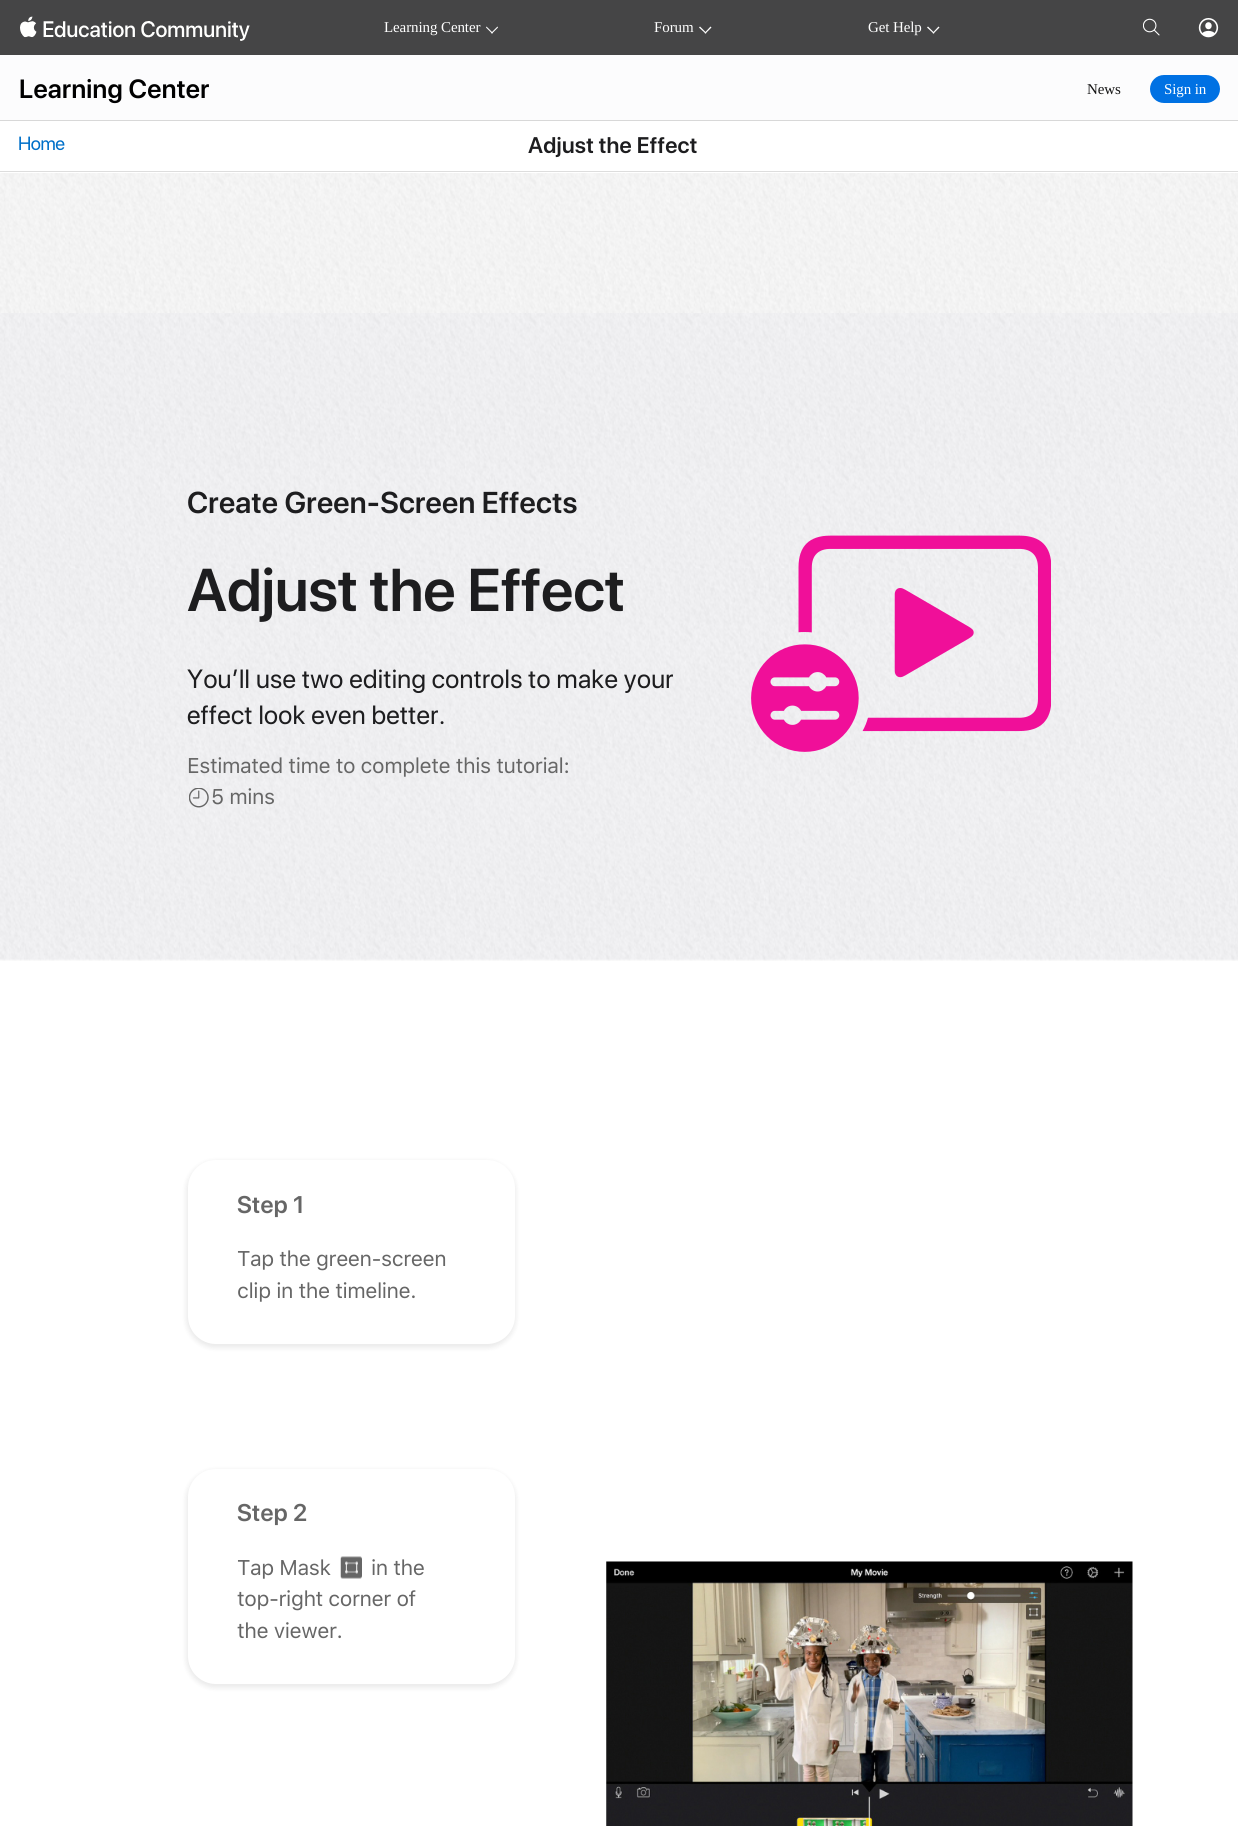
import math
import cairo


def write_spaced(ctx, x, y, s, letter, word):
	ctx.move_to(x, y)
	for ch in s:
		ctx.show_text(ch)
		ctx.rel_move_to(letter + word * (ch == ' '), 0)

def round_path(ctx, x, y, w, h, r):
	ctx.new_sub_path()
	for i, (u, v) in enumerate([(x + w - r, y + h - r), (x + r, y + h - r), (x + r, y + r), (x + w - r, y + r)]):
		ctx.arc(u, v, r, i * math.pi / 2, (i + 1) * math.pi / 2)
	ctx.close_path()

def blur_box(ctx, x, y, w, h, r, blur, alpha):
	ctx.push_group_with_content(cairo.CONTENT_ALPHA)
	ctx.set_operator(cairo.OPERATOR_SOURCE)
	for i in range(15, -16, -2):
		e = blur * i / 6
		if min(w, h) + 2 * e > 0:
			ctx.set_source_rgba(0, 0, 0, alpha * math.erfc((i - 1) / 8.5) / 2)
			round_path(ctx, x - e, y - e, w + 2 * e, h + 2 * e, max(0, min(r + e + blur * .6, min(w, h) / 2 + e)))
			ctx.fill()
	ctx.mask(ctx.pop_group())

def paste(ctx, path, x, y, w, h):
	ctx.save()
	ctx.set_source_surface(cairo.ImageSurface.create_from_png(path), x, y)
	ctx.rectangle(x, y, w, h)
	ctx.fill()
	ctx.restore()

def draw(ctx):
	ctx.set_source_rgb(1, 1, 1)
	ctx.paint()
	ctx.set_source_rgb(0.271, 0.271, 0.275)
	ctx.rectangle(0, 0, 1238, 55)
	ctx.fill()
	paste(ctx, 'media/1.png', 20, 16, 230, 25)
	ctx.select_font_face('Liberation Serif')
	ctx.set_font_size(15)
	ctx.set_source_rgb(1, 1, 1)
	write_spaced(ctx, 384, 32, 'Learning Center', -0.1, 0)
	ctx.new_path()
	ctx.move_to(497.5, 26.5)
	ctx.line_to(498, 27.5)
	ctx.line_to(492, 33.5)
	ctx.line_to(491, 33)
	ctx.close_path()
	ctx.fill()
	ctx.new_path()
	ctx.move_to(486.5, 26.5)
	ctx.line_to(493, 33)
	ctx.line_to(492, 33.5)
	ctx.line_to(486, 27.5)
	ctx.close_path()
	ctx.fill()
	write_spaced(ctx, 654, 32, 'Forum', -0.1, 0)
	ctx.new_path()
	ctx.move_to(710.5, 26.5)
	ctx.line_to(711.5, 27.5)
	ctx.line_to(705.5, 33.5)
	ctx.line_to(704.5, 33)
	ctx.close_path()
	ctx.fill()
	ctx.new_path()
	ctx.move_to(700, 26.5)
	ctx.line_to(706.5, 33)
	ctx.line_to(705.5, 33.5)
	ctx.line_to(699, 27.5)
	ctx.close_path()
	ctx.fill()
	write_spaced(ctx, 868, 32, 'Get Help', -0.1, 0)
	ctx.new_path()
	ctx.move_to(938.5, 26.5)
	ctx.line_to(939.5, 27.5)
	ctx.line_to(933.5, 33.5)
	ctx.line_to(932.5, 33)
	ctx.close_path()
	ctx.fill()
	ctx.new_path()
	ctx.move_to(928, 26.5)
	ctx.line_to(934.5, 33)
	ctx.line_to(933.5, 33.5)
	ctx.line_to(927, 27.5)
	ctx.close_path()
	ctx.fill()
	paste(ctx, 'media/2.png', 1143, 18, 17, 18)
	paste(ctx, 'media/3.png', 1198, 18, 21, 20)
	ctx.set_source_rgb(0.988, 0.988, 0.992)
	ctx.rectangle(0, 55, 1238, 65)
	ctx.fill()
	ctx.set_source_rgb(0.847, 0.847, 0.847)
	ctx.rectangle(0, 120, 1238, 1)
	ctx.fill()
	ctx.select_font_face('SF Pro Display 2 SemiBold')
	ctx.set_font_size(26.25)
	ctx.set_source_rgb(0, 0, 0)
	write_spaced(ctx, 19, 98, 'Learning Center', 0.3, 0)
	ctx.select_font_face('Liberation Serif')
	ctx.set_font_size(15)
	ctx.set_source_rgb(0.078, 0.078, 0.078)
	write_spaced(ctx, 1087, 94, 'News', -0.1, 0)
	ctx.set_source_rgb(0, 0.443, 0.89)
	round_path(ctx, 1150, 75, 70, 28, 14)
	ctx.fill()
	ctx.set_source_rgb(1, 1, 1)
	write_spaced(ctx, 1164, 94, 'Sign in', -0.1, 0)
	ctx.set_source_rgb(0.867, 0.867, 0.867)
	ctx.rectangle(0, 171, 1238, 1)
	ctx.fill()
	ctx.select_font_face('SF Pro Display')
	ctx.set_font_size(19)
	ctx.set_source_rgb(0, 0.439, 0.788)
	write_spaced(ctx, 18, 150, 'Home', -0.45, 0)
	ctx.select_font_face('SF Pro Display SemiBold')
	ctx.set_font_size(22.5)
	ctx.set_source_rgb(0.114, 0.114, 0.122)
	write_spaced(ctx, 528, 153, 'Adjust the Effect', 0.25, 0)
	paste(ctx, 'media/4.png', 0, 173, 1238, 140)
	ctx.set_source_rgb(0.984, 0.984, 0.992)
	ctx.rectangle(0, 313, 1238, 647)
	ctx.fill()
	paste(ctx, 'media/5.png', 0, 313, 1238, 648)
	ctx.select_font_face('SF Pro Display 2 SemiBold')
	ctx.set_font_size(30)
	ctx.set_source_rgb(0.114, 0.114, 0.122)
	write_spaced(ctx, 187, 513, 'Create Green‑Screen Effects', 0.25, 0)
	ctx.set_font_size(60)
	write_spaced(ctx, 187, 611, 'Adjust the Effect', -0.2, 0)
	ctx.select_font_face('SF Pro Display 2')
	ctx.set_font_size(26.25)
	write_spaced(ctx, 187, 688, 'You’ll use two editing controls to make your', 0.3, 0)
	write_spaced(ctx, 187, 724, 'effect look even better.', 0.3, 0)
	ctx.select_font_face('SF Pro Text')
	ctx.set_font_size(21.25)
	ctx.set_source_rgb(0.4, 0.4, 0.4)
	write_spaced(ctx, 187, 773, 'Estimated time to complete this tutorial:', -0.45, 0)
	paste(ctx, 'media/6.png', 189, 788, 20, 20)
	write_spaced(ctx, 211, 804, '5 mins', -0.45, 0)
	paste(ctx, 'media/7.png', 751, 535, 300, 217)
	ctx.set_source_rgb(0, 0, 0)
	blur_box(ctx, 186, 1161, 330, 187, 29, 2.5, 0.08)
	ctx.set_source_rgb(1, 1, 1)
	round_path(ctx, 188, 1160, 327, 184, 28)
	ctx.fill()
	ctx.select_font_face('SF Pro Display 2 SemiBold')
	ctx.set_font_size(24)
	ctx.set_source_rgb(0.4, 0.4, 0.4)
	write_spaced(ctx, 237, 1213, 'Step 1', 0.3, 0)
	ctx.select_font_face('SF Pro Text')
	ctx.set_font_size(21.25)
	write_spaced(ctx, 237, 1266, 'Tap the green‑screen', -0.45, 0)
	write_spaced(ctx, 237, 1298, 'clip in the timeline.', -0.45, 0)
	ctx.set_source_rgb(0, 0, 0)
	blur_box(ctx, 186, 1470, 330, 218, 29, 2.5, 0.08)
	ctx.set_source_rgb(1, 1, 1)
	round_path(ctx, 188, 1469, 327, 215, 28)
	ctx.fill()
	ctx.select_font_face('SF Pro Display 2 SemiBold')
	ctx.set_font_size(24)
	ctx.set_source_rgb(0.4, 0.4, 0.4)
	write_spaced(ctx, 237, 1521, 'Step 2', 0.3, 0)
	ctx.select_font_face('SF Pro Text')
	ctx.set_font_size(21.25)
	write_spaced(ctx, 237, 1575, 'Tap Mask', -0.45, 0)
	paste(ctx, 'media/8.png', 340, 1556, 22, 23)
	for x, y, s in [
		(371, 1575, 'in the'),
		(237, 1606, 'top‑right corner of'),
		(237, 1638, 'the viewer.'),
	]:
		write_spaced(ctx, x, y, s, -0.45, 0)
	paste(ctx, 'media/9.png', 606, 1561, 527, 265)


surface = cairo.ImageSurface(cairo.FORMAT_RGB24, 1238, 1826)
ctx = cairo.Context(surface)
options = cairo.FontOptions()
options.set_hint_metrics(cairo.HINT_METRICS_OFF)
options.set_hint_style(cairo.HINT_STYLE_NONE)
ctx.set_font_options(options)
ctx.set_miter_limit(4)
draw(ctx)
surface.write_to_png('image.png')
